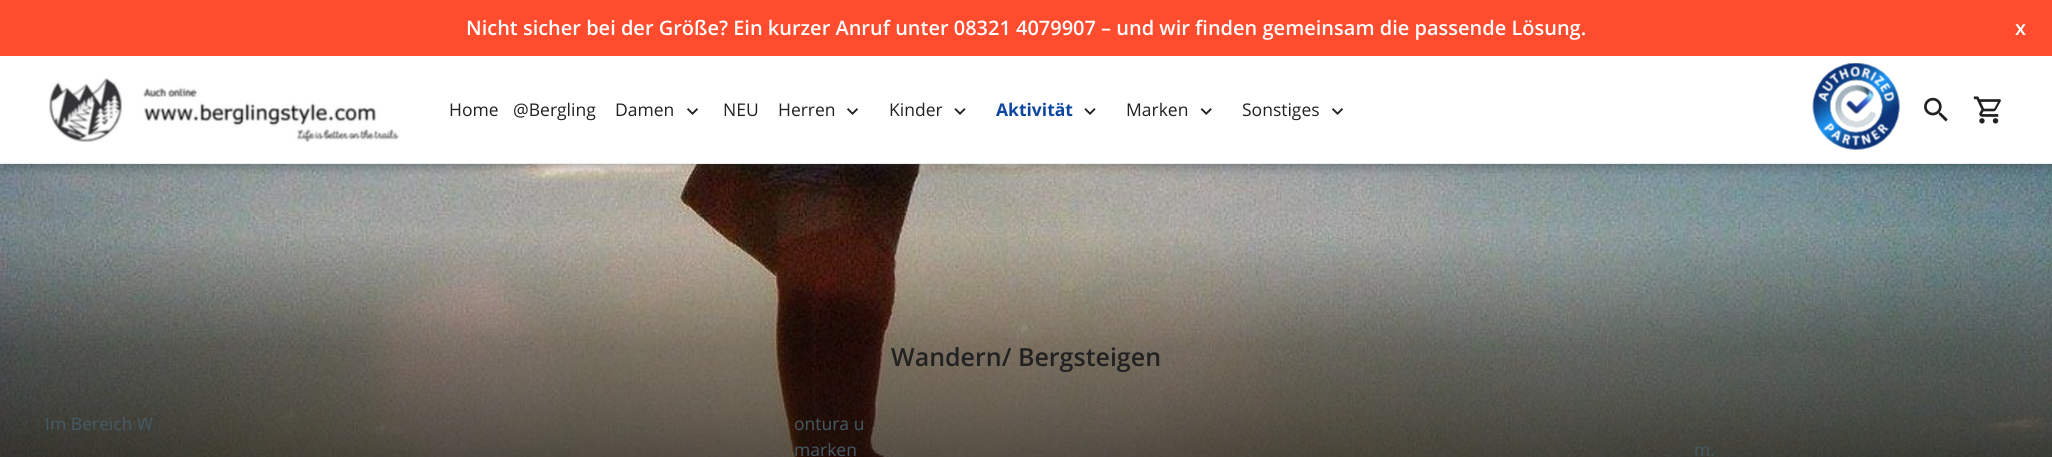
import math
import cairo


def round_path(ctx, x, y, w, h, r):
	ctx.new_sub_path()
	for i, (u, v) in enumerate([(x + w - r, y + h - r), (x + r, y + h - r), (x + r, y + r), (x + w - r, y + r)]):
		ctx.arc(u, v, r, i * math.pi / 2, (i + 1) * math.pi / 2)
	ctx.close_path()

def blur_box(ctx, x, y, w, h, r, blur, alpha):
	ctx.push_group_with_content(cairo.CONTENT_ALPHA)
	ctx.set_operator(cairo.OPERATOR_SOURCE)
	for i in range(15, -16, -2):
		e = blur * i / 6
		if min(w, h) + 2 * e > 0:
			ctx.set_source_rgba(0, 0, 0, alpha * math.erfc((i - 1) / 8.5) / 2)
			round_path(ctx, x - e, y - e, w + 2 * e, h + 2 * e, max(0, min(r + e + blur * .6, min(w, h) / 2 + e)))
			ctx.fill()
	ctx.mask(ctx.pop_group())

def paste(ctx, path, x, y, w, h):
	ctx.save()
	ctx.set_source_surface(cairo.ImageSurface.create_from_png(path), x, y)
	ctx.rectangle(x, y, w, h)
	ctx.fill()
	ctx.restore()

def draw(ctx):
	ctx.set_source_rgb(1, 1, 1)
	ctx.paint()
	paste(ctx, 'media/8.png', 0, 164, 2052, 293)
	ctx.set_source_rgb(0.149, 0.196, 0.22)
	blur_box(ctx, 3, 5, 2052, 164, 0, 5, 0.28)
	blur_box(ctx, 0, 0, 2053, 164, 0, 2.5, 0.14)
	ctx.set_source_rgb(1, 1, 1)
	ctx.rectangle(0, 56, 2052, 107)
	ctx.fill()
	ctx.set_source_rgb(0.925, 0.937, 0.945)
	ctx.rectangle(0, 163, 2052, 1)
	ctx.fill()
	ctx.set_source_rgb(1, 0.298, 0.184)
	ctx.rectangle(0, 0, 2052, 56)
	ctx.fill()
	ctx.select_font_face('Open Sans SemiBold')
	ctx.set_font_size(20)
	ctx.set_source_rgb(1, 1, 1)
	ctx.move_to(466, 35)
	ctx.show_text('Nicht sicher bei der Größe? Ein kurzer Anruf unter 08321 4079907 – und wir finden gemeinsam die passende Lösung.')
	ctx.move_to(2015, 35)
	ctx.show_text('x')
	paste(ctx, 'media/1.png', 49, 78, 351, 64)
	ctx.select_font_face('Open Sans')
	ctx.set_font_size(17.5)
	ctx.set_source_rgb(0.129, 0.129, 0.129)
	for x, y, s in [
		(449, 116, 'Home'),
		(513, 116, '@Bergling'),
		(615, 116, 'Damen'),
	]:
		ctx.move_to(x, y)
		ctx.show_text(s)
	paste(ctx, 'media/2.png', 687, 108, 11, 7)
	ctx.move_to(723, 116)
	ctx.show_text('NEU')
	ctx.move_to(778, 116)
	ctx.show_text('Herren')
	paste(ctx, 'media/2.png', 847, 108, 11, 7)
	ctx.move_to(889, 116)
	ctx.show_text('Kinder')
	paste(ctx, 'media/3.png', 954, 108, 12, 7)
	ctx.select_font_face('Open Sans', cairo.FONT_SLANT_NORMAL, cairo.FONT_WEIGHT_BOLD)
	ctx.set_source_rgb(0.051, 0.278, 0.631)
	ctx.move_to(996, 116)
	ctx.show_text('Aktivität')
	paste(ctx, 'media/3.png', 1084, 108, 12, 7)
	ctx.select_font_face('Open Sans')
	ctx.set_source_rgb(0.129, 0.129, 0.129)
	ctx.move_to(1126, 116)
	ctx.show_text('Marken')
	paste(ctx, 'media/4.png', 1200, 108, 12, 7)
	ctx.move_to(1242, 116)
	ctx.show_text('Sonstiges')
	paste(ctx, 'media/2.png', 1332, 108, 11, 7)
	paste(ctx, 'media/5.png', 1812, 63, 88, 87)
	paste(ctx, 'media/6.png', 1924, 97, 24, 25)
	paste(ctx, 'media/7.png', 1973, 96, 28, 28)
	ctx.select_font_face('Open Sans SemiBold')
	ctx.set_font_size(25)
	ctx.move_to(891, 366)
	ctx.show_text('Wandern/ Bergsteigen')
	ctx.select_font_face('Open Sans')
	ctx.set_font_size(17.5)
	ctx.set_source_rgb(0.271, 0.353, 0.392)
	for x, y, s in [
		(45, 430, 'Im Bereich W'),
		(794, 430, 'ontura u'),
		(794, 456, 'marken'),
		(1694, 456, 'm.'),
	]:
		ctx.move_to(x, y)
		ctx.show_text(s)


surface = cairo.ImageSurface(cairo.FORMAT_RGB24, 2052, 457)
ctx = cairo.Context(surface)
options = cairo.FontOptions()
options.set_hint_metrics(cairo.HINT_METRICS_OFF)
options.set_hint_style(cairo.HINT_STYLE_NONE)
ctx.set_font_options(options)
ctx.set_miter_limit(4)
draw(ctx)
surface.write_to_png('image.png')
